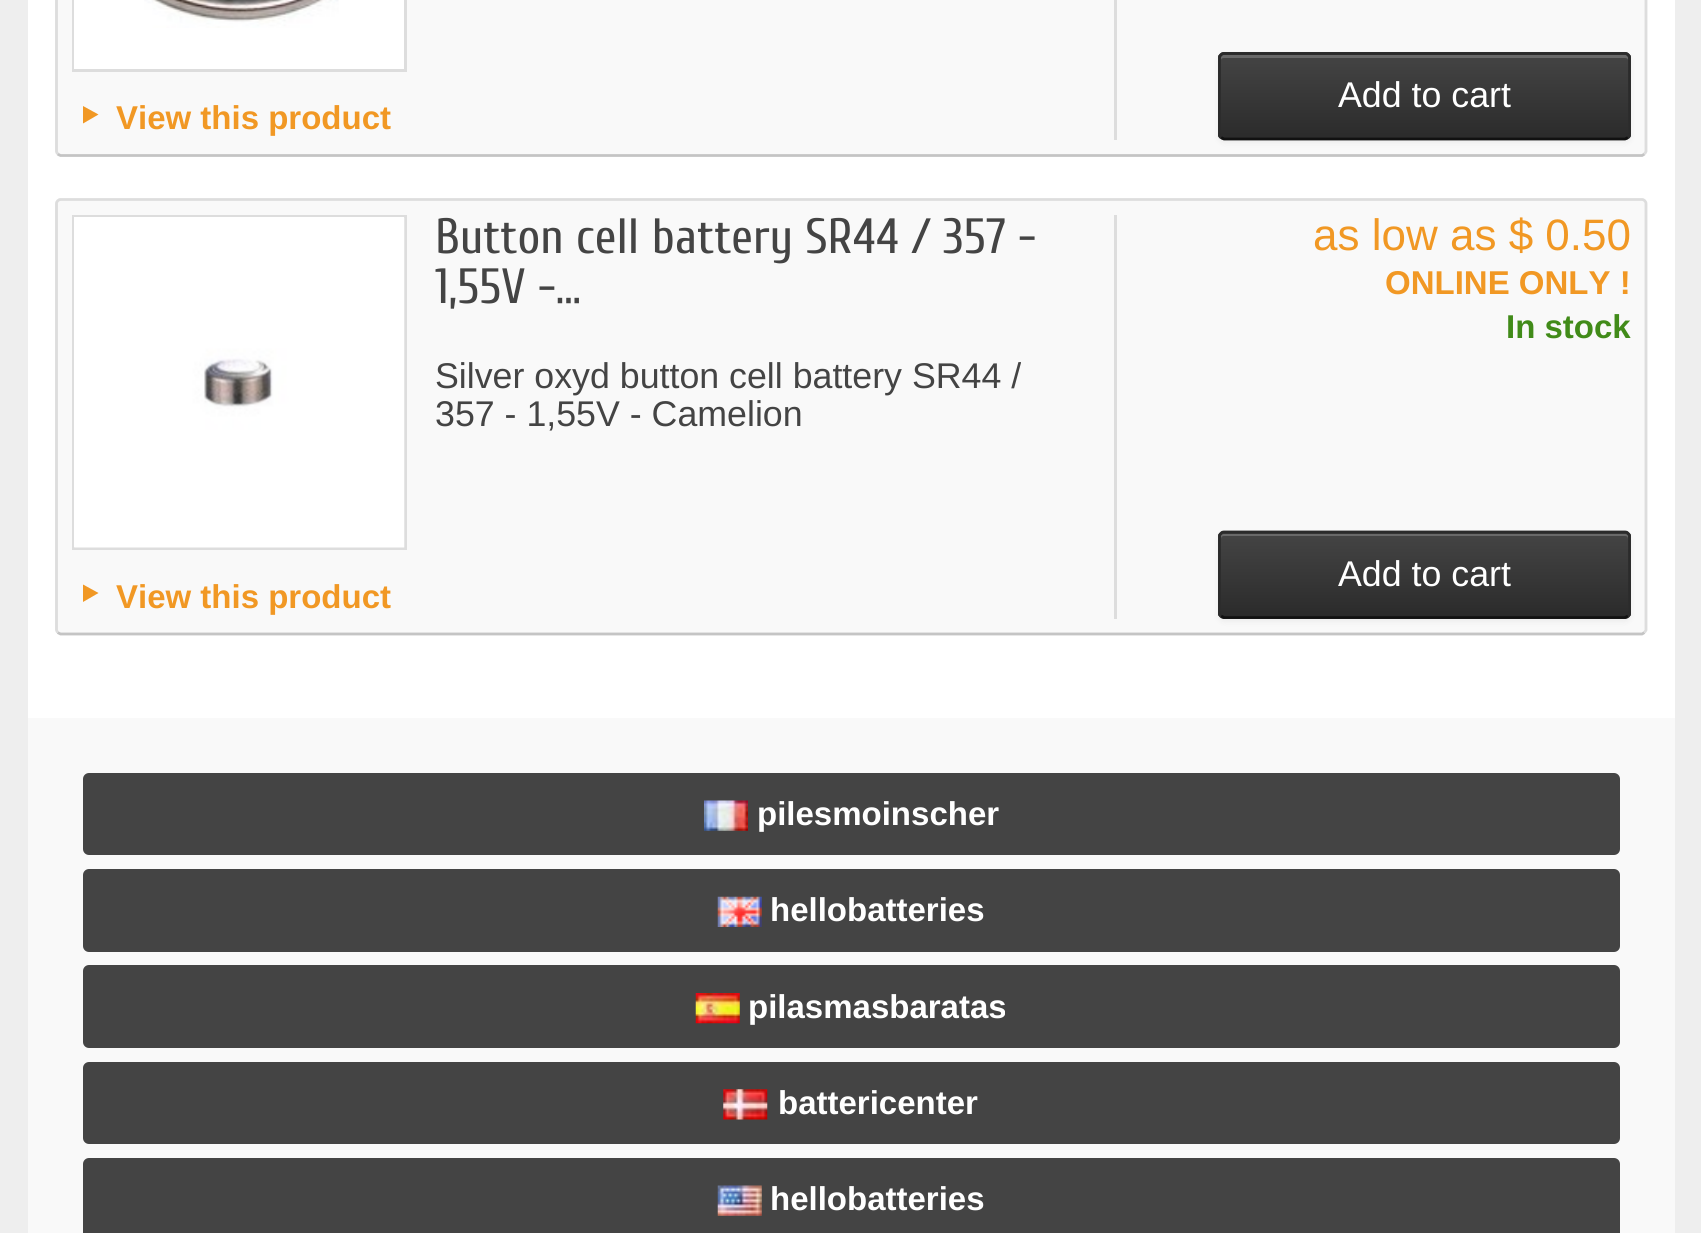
import math
import cairo


def round_path(ctx, x, y, w, h, r):
	ctx.new_sub_path()
	for i, (u, v) in enumerate([(x + w - r, y + h - r), (x + r, y + h - r), (x + r, y + r), (x + w - r, y + r)]):
		ctx.arc(u, v, r, i * math.pi / 2, (i + 1) * math.pi / 2)
	ctx.close_path()

def blur_box(ctx, x, y, w, h, r, blur, alpha):
	ctx.push_group_with_content(cairo.CONTENT_ALPHA)
	ctx.set_operator(cairo.OPERATOR_SOURCE)
	for i in range(15, -16, -2):
		e = blur * i / 6
		if min(w, h) + 2 * e > 0:
			ctx.set_source_rgba(0, 0, 0, alpha * math.erfc((i - 1) / 8.5) / 2)
			round_path(ctx, x - e, y - e, w + 2 * e, h + 2 * e, max(0, min(r + e + blur * .6, min(w, h) / 2 + e)))
			ctx.fill()
	ctx.mask(ctx.pop_group())

def paste(ctx, path, x, y, w, h):
	ctx.save()
	ctx.set_source_surface(cairo.ImageSurface.create_from_png(path), x, y)
	ctx.rectangle(x, y, w, h)
	ctx.fill()
	ctx.restore()

def draw(ctx):
	ctx.set_source_rgb(0.933, 0.933, 0.933)
	ctx.paint()
	ctx.set_source_rgb(1, 1, 1)
	ctx.rectangle(28, 0, 1647, 718)
	ctx.fill()
	ctx.set_source_rgb(0.976, 0.976, 0.976)
	round_path(ctx, 55, -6, 1592, 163, 6)
	ctx.fill()
	ctx.new_path()
	ctx.move_to(1644.5, 154)
	ctx.line_to(1642, 155.5)
	ctx.line_to(60.5, 155.5)
	ctx.line_to(57.5, 154)
	ctx.set_source_rgb(0.769, 0.769, 0.769)
	ctx.set_line_width(2.8)
	ctx.stroke()
	ctx.new_path()
	ctx.move_to(57.5, 154)
	ctx.line_to(56.5, 151.5)
	ctx.line_to(56.5, -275)
	ctx.curve_to(56.5, -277, 58.5, -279, 60.5, -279)
	ctx.line_to(1642, -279)
	ctx.curve_to(1644, -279, 1646, -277, 1646, -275)
	ctx.line_to(1646, 151.5)
	ctx.line_to(1644.5, 154)
	ctx.set_source_rgb(0.867, 0.867, 0.867)
	ctx.stroke()
	ctx.set_source_rgb(0, 0, 0)
	blur_box(ctx, 1218, 55, 413, 88, 6, 3, 0.05)
	ctx.set_source_rgb(0.227, 0.227, 0.227)
	round_path(ctx, 1218, 52, 413, 88, 6)
	ctx.fill()
	ctx.save()
	round_path(ctx, 1218, 52, 413, 88, 6)
	ctx.clip()
	gradient = cairo.LinearGradient(1425, 55, 1425, 138)
	gradient.add_color_stop_rgba(0, 0.267, 0.267, 0.267, 1)
	gradient.add_color_stop_rgba(1, 0.169, 0.169, 0.169, 1)
	ctx.set_source(gradient)
	ctx.rectangle(1218, 55, 413, 83)
	ctx.fill()
	ctx.restore()
	ctx.set_source_rgb(0.412, 0.412, 0.412)
	ctx.new_path()
	ctx.move_to(1224, 58)
	ctx.line_to(1625, 58)
	ctx.curve_to(1627, 58, 1628, 59, 1628, 60)
	ctx.line_to(1628, 58)
	ctx.curve_to(1628, 56, 1627, 55, 1625, 55)
	ctx.line_to(1224, 55)
	ctx.curve_to(1222, 55, 1221, 56, 1221, 58)
	ctx.line_to(1221, 60)
	ctx.curve_to(1221, 59, 1222, 58, 1224, 58)
	ctx.close_path()
	ctx.fill()
	ctx.new_path()
	ctx.move_to(1628, 137.5)
	ctx.line_to(1625, 139)
	ctx.line_to(1224, 139)
	ctx.line_to(1221, 137.5)
	ctx.set_source_rgb(0.067, 0.067, 0.067)
	ctx.stroke()
	ctx.new_path()
	ctx.move_to(1221, 137.5)
	ctx.curve_to(1220, 137, 1219.5, 136, 1219.5, 135)
	ctx.line_to(1219.5, 58)
	ctx.curve_to(1219.5, 56.5, 1220, 55.5, 1221, 55)
	ctx.curve_to(1221.5, 54, 1222.5, 53.5, 1224, 53.5)
	ctx.line_to(1625, 53.5)
	ctx.curve_to(1626.5, 53.5, 1627.5, 54, 1628, 55)
	ctx.curve_to(1629, 55.5, 1629.5, 56.5, 1629.5, 58)
	ctx.line_to(1629.5, 135)
	ctx.curve_to(1629.5, 136, 1629, 137, 1628, 137.5)
	ctx.set_source_rgb(0.169, 0.169, 0.169)
	ctx.stroke()
	ctx.select_font_face('Liberation Sans')
	ctx.set_font_size(35.75)
	ctx.set_source_rgb(1, 1, 1)
	ctx.move_to(1338, 107)
	ctx.show_text('Add to cart')
	ctx.set_source_rgb(0.867, 0.867, 0.867)
	ctx.rectangle(1114, 0, 3, 140)
	ctx.fill()
	ctx.rectangle(73.5, -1.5, 332, 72)
	ctx.set_line_width(3)
	ctx.stroke()
	ctx.set_source_rgb(1, 1, 1)
	ctx.rectangle(74, 0, 330, 69)
	ctx.fill()
	paste(ctx, 'media/1.png', 144, 0, 195, 28)
	ctx.set_source_rgb(0.945, 0.596, 0.141)
	ctx.new_path()
	ctx.move_to(83, 106)
	ctx.line_to(83, 123.5)
	ctx.line_to(98.5, 114.5)
	ctx.close_path()
	ctx.fill()
	ctx.select_font_face('Liberation Sans', cairo.FONT_SLANT_NORMAL, cairo.FONT_WEIGHT_BOLD)
	ctx.set_font_size(33)
	ctx.move_to(116, 129)
	ctx.show_text('View this product')
	ctx.set_source_rgb(0.976, 0.976, 0.976)
	round_path(ctx, 55, 198, 1592, 437, 6)
	ctx.fill()
	ctx.new_path()
	ctx.move_to(1644.5, 632.5)
	ctx.line_to(1642, 634)
	ctx.line_to(60.5, 634)
	ctx.line_to(57.5, 632.5)
	ctx.set_source_rgb(0.769, 0.769, 0.769)
	ctx.set_line_width(2.8)
	ctx.stroke()
	ctx.new_path()
	ctx.move_to(57.5, 632.5)
	ctx.line_to(56.5, 630)
	ctx.line_to(56.5, 203.5)
	ctx.curve_to(56.5, 201.5, 58.5, 199.5, 60.5, 199.5)
	ctx.line_to(1642, 199.5)
	ctx.curve_to(1644, 199.5, 1646, 201.5, 1646, 203.5)
	ctx.line_to(1646, 630)
	ctx.line_to(1644.5, 632.5)
	ctx.set_source_rgb(0.867, 0.867, 0.867)
	ctx.stroke()
	ctx.rectangle(1114, 215, 3, 404)
	ctx.fill()
	ctx.rectangle(73.5, 216.5, 332, 332)
	ctx.set_line_width(3)
	ctx.stroke()
	ctx.set_source_rgb(1, 1, 1)
	ctx.rectangle(74, 217, 330, 330)
	ctx.fill()
	paste(ctx, 'media/2.png', 74, 217, 331, 331)
	ctx.select_font_face('Cuprum')
	ctx.set_font_size(49.5)
	ctx.set_source_rgb(0.267, 0.267, 0.267)
	ctx.move_to(435, 253)
	ctx.show_text('Button cell battery SR44 / 357 -')
	ctx.move_to(435, 303)
	ctx.show_text('1,55V -...')
	ctx.select_font_face('Liberation Sans')
	ctx.set_font_size(35.75)
	ctx.move_to(435, 388)
	ctx.show_text('Silver oxyd button cell battery SR44 /')
	ctx.move_to(435, 426)
	ctx.show_text('357 - 1,55V - Camelion')
	ctx.set_source_rgb(0.945, 0.596, 0.141)
	ctx.new_path()
	ctx.move_to(83, 584.5)
	ctx.line_to(83, 602)
	ctx.line_to(98.5, 593)
	ctx.close_path()
	ctx.fill()
	ctx.select_font_face('Liberation Sans', cairo.FONT_SLANT_NORMAL, cairo.FONT_WEIGHT_BOLD)
	ctx.set_font_size(33)
	ctx.move_to(116, 608)
	ctx.show_text('View this product')
	ctx.select_font_face('Liberation Sans')
	ctx.set_font_size(44)
	ctx.move_to(1313, 250)
	ctx.show_text('as low as $ 0.50')
	ctx.select_font_face('Liberation Sans', cairo.FONT_SLANT_NORMAL, cairo.FONT_WEIGHT_BOLD)
	ctx.set_font_size(33)
	ctx.move_to(1385, 294)
	ctx.show_text('ONLINE ONLY !')
	ctx.set_source_rgb(0.255, 0.545, 0.098)
	ctx.move_to(1506, 338)
	ctx.show_text('In stock')
	ctx.set_source_rgb(0, 0, 0)
	blur_box(ctx, 1218, 534, 413, 88, 6, 3, 0.05)
	ctx.set_source_rgb(0.227, 0.227, 0.227)
	round_path(ctx, 1218, 531, 413, 88, 6)
	ctx.fill()
	ctx.save()
	round_path(ctx, 1218, 531, 413, 88, 6)
	ctx.clip()
	gradient = cairo.LinearGradient(1425, 534, 1425, 616)
	gradient.add_color_stop_rgba(0, 0.267, 0.267, 0.267, 1)
	gradient.add_color_stop_rgba(1, 0.169, 0.169, 0.169, 1)
	ctx.set_source(gradient)
	ctx.rectangle(1218, 534, 413, 82)
	ctx.fill()
	ctx.restore()
	ctx.set_source_rgb(0.412, 0.412, 0.412)
	ctx.new_path()
	ctx.move_to(1224, 536)
	ctx.line_to(1625, 536)
	ctx.curve_to(1627, 536, 1628, 537, 1628, 539)
	ctx.line_to(1628, 537)
	ctx.curve_to(1628, 535, 1627, 534, 1625, 534)
	ctx.line_to(1224, 534)
	ctx.curve_to(1222, 534, 1221, 535, 1221, 537)
	ctx.line_to(1221, 539)
	ctx.curve_to(1221, 537, 1222, 536, 1224, 536)
	ctx.close_path()
	ctx.fill()
	ctx.new_path()
	ctx.move_to(1628, 616)
	ctx.line_to(1625, 617.5)
	ctx.line_to(1224, 617.5)
	ctx.line_to(1221, 616)
	ctx.set_source_rgb(0.067, 0.067, 0.067)
	ctx.set_line_width(2.8)
	ctx.stroke()
	ctx.new_path()
	ctx.move_to(1221, 616)
	ctx.curve_to(1220, 615.5, 1219.5, 614.5, 1219.5, 613)
	ctx.line_to(1219.5, 536)
	ctx.curve_to(1219.5, 535, 1220, 534, 1221, 533.5)
	ctx.curve_to(1221.5, 532.5, 1222.5, 532, 1224, 532)
	ctx.line_to(1625, 532)
	ctx.curve_to(1626.5, 532, 1627.5, 532.5, 1628, 533.5)
	ctx.curve_to(1629, 534, 1629.5, 535, 1629.5, 536)
	ctx.line_to(1629.5, 613)
	ctx.curve_to(1629.5, 614.5, 1629, 615.5, 1628, 616)
	ctx.set_source_rgb(0.169, 0.169, 0.169)
	ctx.stroke()
	ctx.select_font_face('Liberation Sans')
	ctx.set_font_size(35.75)
	ctx.set_source_rgb(1, 1, 1)
	ctx.move_to(1338, 586)
	ctx.show_text('Add to cart')
	ctx.set_source_rgb(0.976, 0.976, 0.976)
	ctx.rectangle(28, 718, 1647, 515)
	ctx.fill()
	ctx.set_source_rgb(0.267, 0.267, 0.267)
	round_path(ctx, 83, 773, 1537, 82, 6)
	ctx.fill()
	paste(ctx, 'media/3.png', 704, 800, 44, 31)
	ctx.select_font_face('Liberation Sans', cairo.FONT_SLANT_NORMAL, cairo.FONT_WEIGHT_BOLD)
	ctx.set_font_size(33)
	ctx.set_source_rgb(1, 1, 1)
	ctx.move_to(757, 825)
	ctx.show_text('pilesmoinscher')
	ctx.set_source_rgb(0.267, 0.267, 0.267)
	round_path(ctx, 83, 869, 1537, 83, 6)
	ctx.fill()
	paste(ctx, 'media/4.png', 717, 896, 45, 31)
	ctx.set_source_rgb(1, 1, 1)
	ctx.move_to(770, 921)
	ctx.show_text('hellobatteries')
	ctx.set_source_rgb(0.267, 0.267, 0.267)
	round_path(ctx, 83, 965, 1537, 83, 6)
	ctx.fill()
	paste(ctx, 'media/5.png', 695, 993, 45, 31)
	ctx.set_source_rgb(1, 1, 1)
	ctx.move_to(748, 1018)
	ctx.show_text('pilasmasbaratas')
	ctx.set_source_rgb(0.267, 0.267, 0.267)
	round_path(ctx, 83, 1062, 1537, 82, 6)
	ctx.fill()
	paste(ctx, 'media/6.png', 723, 1089, 45, 31)
	ctx.set_source_rgb(1, 1, 1)
	ctx.move_to(778, 1114)
	ctx.show_text('battericenter')
	ctx.set_source_rgb(0.267, 0.267, 0.267)
	round_path(ctx, 83, 1158, 1537, 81, 6)
	ctx.fill()
	paste(ctx, 'media/7.png', 717, 1185, 45, 31)
	ctx.set_source_rgb(1, 1, 1)
	ctx.move_to(770, 1210)
	ctx.show_text('hellobatteries')


surface = cairo.ImageSurface(cairo.FORMAT_RGB24, 1701, 1233)
ctx = cairo.Context(surface)
options = cairo.FontOptions()
options.set_hint_metrics(cairo.HINT_METRICS_OFF)
options.set_hint_style(cairo.HINT_STYLE_NONE)
ctx.set_font_options(options)
ctx.set_miter_limit(4)
draw(ctx)
surface.write_to_png('image.png')
